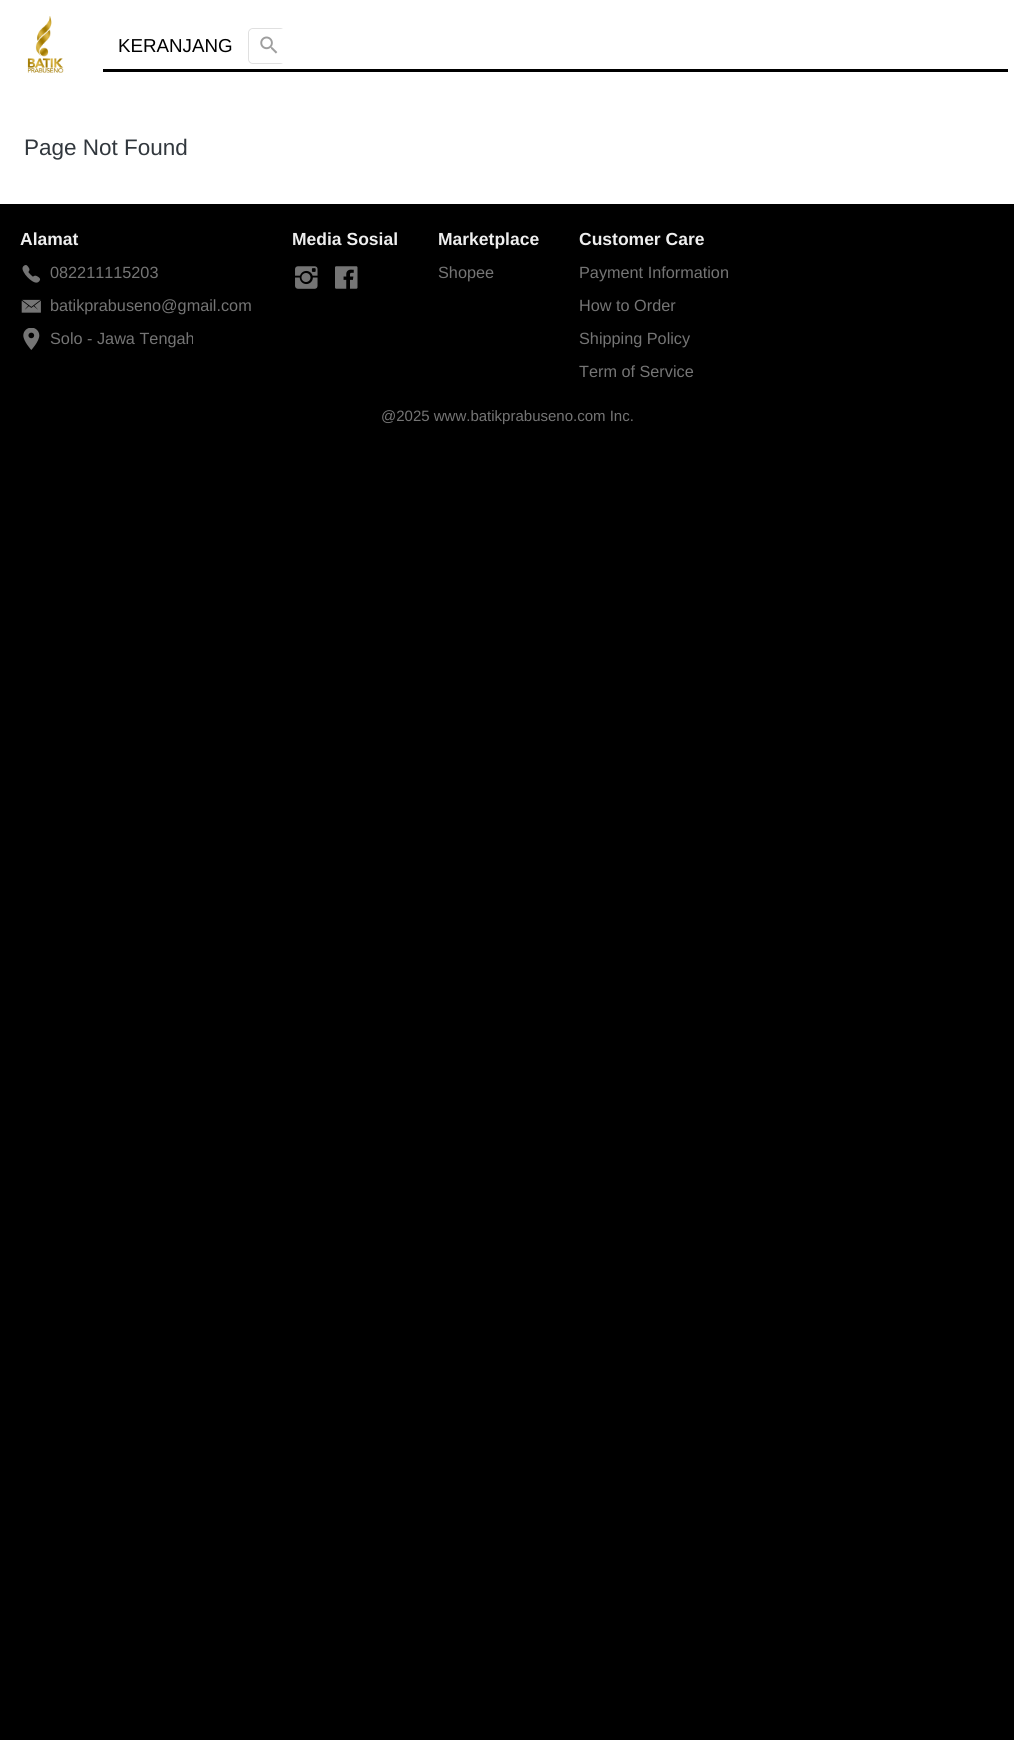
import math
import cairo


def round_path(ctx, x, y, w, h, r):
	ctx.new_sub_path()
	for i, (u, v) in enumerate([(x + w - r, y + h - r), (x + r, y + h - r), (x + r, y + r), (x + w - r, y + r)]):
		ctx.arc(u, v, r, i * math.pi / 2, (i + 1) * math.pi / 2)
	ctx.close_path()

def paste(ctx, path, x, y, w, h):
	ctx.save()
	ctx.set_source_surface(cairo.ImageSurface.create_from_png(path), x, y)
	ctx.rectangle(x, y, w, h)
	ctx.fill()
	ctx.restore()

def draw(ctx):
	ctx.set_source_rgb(1, 1, 1)
	ctx.paint()
	paste(ctx, 'media/1.png', 27, 16, 37, 57)
	ctx.select_font_face('Liberation Sans')
	ctx.set_font_size(18.75)
	ctx.set_source_rgb(0, 0, 0)
	ctx.move_to(118, 52)
	ctx.show_text('KERANJANG')
	round_path(ctx, 248.5, 28.5, 36, 35, 4.5)
	ctx.set_source_rgb(0.878, 0.878, 0.878)
	ctx.set_line_width(1)
	ctx.stroke()
	ctx.set_source_rgb(1, 1, 1)
	round_path(ctx, 249, 29, 266, 34, 5)
	ctx.fill()
	paste(ctx, 'media/2.png', 260, 36, 18, 18)
	ctx.set_source_rgb(0, 0, 0)
	ctx.rectangle(103, 69, 905, 3)
	ctx.fill()
	ctx.set_font_size(22.5)
	ctx.set_source_rgb(0.192, 0.216, 0.239)
	ctx.move_to(24, 155)
	ctx.show_text('Page Not Found')
	ctx.set_source_rgb(0, 0, 0)
	ctx.rectangle(0, 204, 1014, 1536)
	ctx.fill()
	ctx.select_font_face('Liberation Sans', cairo.FONT_SLANT_NORMAL, cairo.FONT_WEIGHT_BOLD)
	ctx.set_font_size(17.5)
	ctx.set_source_rgb(0.933, 0.933, 0.933)
	ctx.move_to(20, 245)
	ctx.show_text('Alamat')
	paste(ctx, 'media/3.png', 22, 265, 19, 18)
	ctx.select_font_face('Liberation Sans')
	ctx.set_font_size(16.25)
	ctx.set_source_rgb(0.459, 0.459, 0.459)
	ctx.move_to(50, 278)
	ctx.show_text('082211115203')
	paste(ctx, 'media/4.png', 21, 299, 20, 14)
	ctx.move_to(50, 311)
	ctx.show_text('batikprabuseno@gmail.com')
	paste(ctx, 'media/5.png', 23, 328, 17, 22)
	ctx.move_to(50, 344)
	ctx.show_text('Solo - Jawa Tengah')
	ctx.select_font_face('Liberation Sans', cairo.FONT_SLANT_NORMAL, cairo.FONT_WEIGHT_BOLD)
	ctx.set_font_size(17.5)
	ctx.set_source_rgb(0.933, 0.933, 0.933)
	ctx.move_to(292, 245)
	ctx.show_text('Media Sosial')
	paste(ctx, 'media/6.png', 295, 266, 23, 23)
	paste(ctx, 'media/7.png', 335, 266, 23, 23)
	ctx.move_to(438, 245)
	ctx.show_text('Marketplace')
	ctx.select_font_face('Liberation Sans')
	ctx.set_font_size(16.25)
	ctx.set_source_rgb(0.459, 0.459, 0.459)
	ctx.move_to(438, 278)
	ctx.show_text('Shopee')
	ctx.select_font_face('Liberation Sans', cairo.FONT_SLANT_NORMAL, cairo.FONT_WEIGHT_BOLD)
	ctx.set_font_size(17.5)
	ctx.set_source_rgb(0.933, 0.933, 0.933)
	ctx.move_to(579, 245)
	ctx.show_text('Customer Care')
	ctx.select_font_face('Liberation Sans')
	ctx.set_font_size(16.25)
	ctx.set_source_rgb(0.459, 0.459, 0.459)
	for x, y, s in [
		(579, 278, 'Payment Information'),
		(579, 311, 'How to Order'),
		(579, 344, 'Shipping Policy'),
		(579, 377, 'Term of Service'),
	]:
		ctx.move_to(x, y)
		ctx.show_text(s)
	ctx.set_font_size(15)
	ctx.move_to(381, 421)
	ctx.show_text('@2025 www.batikprabuseno.com Inc.')


surface = cairo.ImageSurface(cairo.FORMAT_RGB24, 1014, 1740)
ctx = cairo.Context(surface)
options = cairo.FontOptions()
options.set_hint_metrics(cairo.HINT_METRICS_OFF)
options.set_hint_style(cairo.HINT_STYLE_NONE)
ctx.set_font_options(options)
ctx.set_miter_limit(4)
draw(ctx)
surface.write_to_png('image.png')
